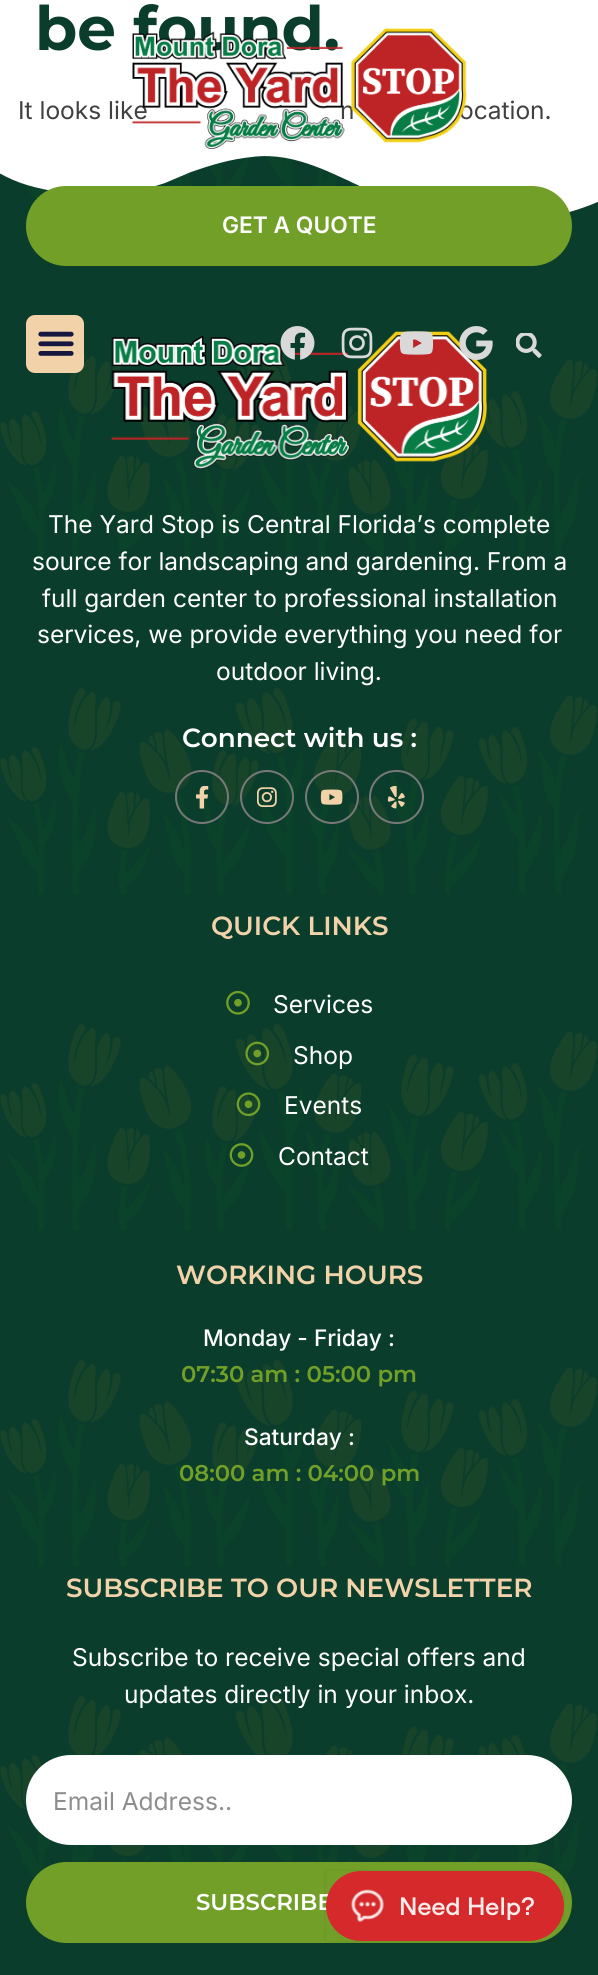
import math
import cairo


def round_path(ctx, x, y, w, h, r):
	ctx.new_sub_path()
	for i, (u, v) in enumerate([(x + w - r, y + h - r), (x + r, y + h - r), (x + r, y + r), (x + w - r, y + r)]):
		ctx.arc(u, v, r, i * math.pi / 2, (i + 1) * math.pi / 2)
	ctx.close_path()

def blur_box(ctx, x, y, w, h, r, blur, alpha):
	ctx.push_group_with_content(cairo.CONTENT_ALPHA)
	ctx.set_operator(cairo.OPERATOR_SOURCE)
	for i in range(15, -16, -2):
		e = blur * i / 6
		if min(w, h) + 2 * e > 0:
			ctx.set_source_rgba(0, 0, 0, alpha * math.erfc((i - 1) / 8.5) / 2)
			round_path(ctx, x - e, y - e, w + 2 * e, h + 2 * e, max(0, min(r + e + blur * .6, min(w, h) / 2 + e)))
			ctx.fill()
	ctx.mask(ctx.pop_group())

def paste(ctx, path, x, y, w, h):
	ctx.save()
	ctx.set_source_surface(cairo.ImageSurface.create_from_png(path), x, y)
	ctx.rectangle(x, y, w, h)
	ctx.fill()
	ctx.restore()

def draw(ctx):
	ctx.set_source_rgb(1, 1, 1)
	ctx.paint()
	ctx.select_font_face('Montserrat', cairo.FONT_SLANT_NORMAL, cairo.FONT_WEIGHT_BOLD)
	ctx.set_font_size(61.25)
	ctx.set_source_rgb(0.043, 0.239, 0.173)
	ctx.move_to(35, 50)
	ctx.show_text('be found.')
	ctx.select_font_face('Inter')
	ctx.set_font_size(24.5)
	ctx.set_source_rgb(0.255, 0.255, 0.255)
	for x, y, s in [
		(18, 119, 'It looks like'),
		(340, 119, 'n'),
		(459, 119, 'ocation.'),
	]:
		ctx.move_to(x, y)
		ctx.show_text(s)
	paste(ctx, 'media/1.png', 132, 28, 335, 122)
	ctx.set_source_rgb(0.043, 0.239, 0.173)
	ctx.rectangle(0, 156, 598, 1819)
	ctx.fill()
	paste(ctx, 'media/8.png', 0, 156, 597, 1724)
	ctx.set_source_rgb(1, 1, 1)
	ctx.new_path()
	ctx.move_to(252, 157)
	ctx.curve_to(296, 151, 336, 176, 375, 193)
	ctx.curve_to(446, 225, 527, 233, 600, 201)
	ctx.line_to(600, 152)
	ctx.line_to(-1, 152)
	ctx.line_to(-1, 173)
	ctx.curve_to(8, 178, 17, 182, 27, 185)
	ctx.curve_to(71, 198, 121, 198, 165, 183)
	ctx.line_to(191, 172)
	ctx.curve_to(211, 165, 231, 159, 252, 157)
	ctx.close_path()
	ctx.fill()
	ctx.set_source_rgb(0.447, 0.624, 0.157)
	round_path(ctx, 26, 186, 546, 80, 40)
	ctx.fill()
	ctx.select_font_face('Inter SemiBold')
	ctx.set_font_size(22.75)
	ctx.set_source_rgb(1, 1, 1)
	ctx.move_to(222, 233)
	ctx.show_text('GET A QUOTE')
	ctx.set_source_rgb(0.945, 0.824, 0.663)
	round_path(ctx, 26, 315, 58, 58, 9)
	ctx.fill()
	paste(ctx, 'media/2.png', 38, 331, 36, 25)
	paste(ctx, 'media/9.png', 111, 331, 377, 138)
	paste(ctx, 'media/3.png', 280, 326, 35, 34)
	paste(ctx, 'media/4.png', 341, 327, 32, 32)
	paste(ctx, 'media/5.png', 399, 331, 35, 24)
	paste(ctx, 'media/6.png', 459, 326, 34, 34)
	paste(ctx, 'media/7.png', 516, 333, 26, 25)
	ctx.select_font_face('Inter')
	ctx.set_font_size(24.5)
	ctx.set_source_rgb(1, 1, 1)
	for x, y, s in [
		(48, 533, 'The Yard Stop is Central Florida’s complete'),
		(32, 570, 'source for landscaping and gardening. From a'),
		(42, 607, 'full garden center to professional installation'),
		(37, 643, 'services, we provide everything you need for'),
		(216, 680, 'outdoor living.'),
	]:
		ctx.move_to(x, y)
		ctx.show_text(s)
	ctx.select_font_face('Montserrat SemiBold')
	ctx.set_font_size(26.25)
	ctx.move_to(182, 747)
	ctx.show_text('Connect with us :')
	ctx.new_path()
	ctx.arc(202, 797, 26, 0, 2 * math.pi)
	ctx.set_source_rgb(0.471, 0.471, 0.471)
	ctx.stroke()
	paste(ctx, 'media/10.png', 196, 786, 13, 23)
	ctx.arc(267, 797, 26, 0, 2 * math.pi)
	ctx.stroke()
	paste(ctx, 'media/11.png', 257, 787, 20, 20)
	ctx.arc(332, 797, 26, 0, 2 * math.pi)
	ctx.stroke()
	paste(ctx, 'media/12.png', 320, 789, 23, 16)
	round_path(ctx, 370, 771, 53, 52, 26)
	ctx.stroke()
	paste(ctx, 'media/13.png', 387, 786, 18, 23)
	ctx.set_source_rgb(0.945, 0.824, 0.663)
	ctx.move_to(211, 935)
	ctx.show_text('QUICK LINKS')
	paste(ctx, 'media/14.png', 226, 991, 24, 24)
	ctx.select_font_face('Inter')
	ctx.set_font_size(24.5)
	ctx.set_source_rgb(1, 1, 1)
	ctx.move_to(273, 1013)
	ctx.show_text('Services')
	paste(ctx, 'media/15.png', 245, 1041, 25, 25)
	ctx.move_to(293, 1064)
	ctx.show_text('Shop')
	paste(ctx, 'media/16.png', 236, 1092, 25, 25)
	ctx.move_to(284, 1114)
	ctx.show_text('Events')
	paste(ctx, 'media/17.png', 229, 1143, 25, 24)
	ctx.move_to(278, 1165)
	ctx.show_text('Contact')
	ctx.select_font_face('Montserrat SemiBold')
	ctx.set_font_size(26.25)
	ctx.set_source_rgb(0.945, 0.824, 0.663)
	ctx.move_to(176, 1284)
	ctx.show_text('WORKING HOURS')
	ctx.select_font_face('Inter Medium')
	ctx.set_font_size(22.75)
	ctx.set_source_rgb(1, 1, 1)
	ctx.move_to(203, 1346)
	ctx.show_text('Monday - Friday :')
	ctx.select_font_face('Montserrat SemiBold')
	ctx.set_source_rgb(0.447, 0.624, 0.157)
	ctx.move_to(181, 1382)
	ctx.show_text('07:30 am : 05:00 pm')
	ctx.select_font_face('Inter Medium')
	ctx.set_source_rgb(1, 1, 1)
	ctx.move_to(244, 1445)
	ctx.show_text('Saturday :')
	ctx.select_font_face('Montserrat SemiBold')
	ctx.set_source_rgb(0.447, 0.624, 0.157)
	ctx.move_to(179, 1481)
	ctx.show_text('08:00 am : 04:00 pm')
	ctx.set_font_size(26.25)
	ctx.set_source_rgb(0.945, 0.824, 0.663)
	ctx.move_to(66, 1597)
	ctx.show_text('SUBSCRIBE TO OUR NEWSLETTER')
	ctx.select_font_face('Inter')
	ctx.set_font_size(24.5)
	ctx.set_source_rgb(1, 1, 1)
	ctx.move_to(72, 1666)
	ctx.show_text('Subscribe to receive special offers and')
	ctx.move_to(124, 1703)
	ctx.show_text('updates directly in your inbox.')
	round_path(ctx, 26, 1755, 546, 90, 45)
	ctx.fill()
	ctx.set_source_rgb(0.553, 0.553, 0.553)
	ctx.move_to(53, 1810)
	ctx.show_text('Email Address..')
	ctx.set_source_rgb(0.447, 0.624, 0.157)
	round_path(ctx, 26, 1862, 546, 81, 40.5)
	ctx.fill()
	ctx.select_font_face('Montserrat SemiBold')
	ctx.set_font_size(22.75)
	ctx.set_source_rgb(1, 1, 1)
	ctx.move_to(196, 1910)
	ctx.show_text('SUBSCRIBE')
	ctx.set_source_rgb(0.086, 0.102, 0.118)
	blur_box(ctx, 336, 1888, 217, 49, 24.5, 7, 0.08)
	ctx.rectangle(325, 1870, 239, 72)
	ctx.set_source_rgba(0.086, 0.102, 0.118, 0.04)
	ctx.stroke()
	ctx.set_source_rgb(0.839, 0.161, 0.169)
	round_path(ctx, 326, 1871, 238, 70, 35)
	ctx.fill()
	paste(ctx, 'media/18.png', 351, 1889, 33, 33)
	ctx.select_font_face('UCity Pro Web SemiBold')
	ctx.set_font_size(24.5)
	ctx.set_source_rgb(0.984, 0.918, 0.918)
	ctx.move_to(399, 1915)
	ctx.show_text('Need Help?')


surface = cairo.ImageSurface(cairo.FORMAT_RGB24, 598, 1975)
ctx = cairo.Context(surface)
options = cairo.FontOptions()
options.set_hint_metrics(cairo.HINT_METRICS_OFF)
options.set_hint_style(cairo.HINT_STYLE_NONE)
ctx.set_font_options(options)
ctx.set_miter_limit(4)
draw(ctx)
surface.write_to_png('image.png')
